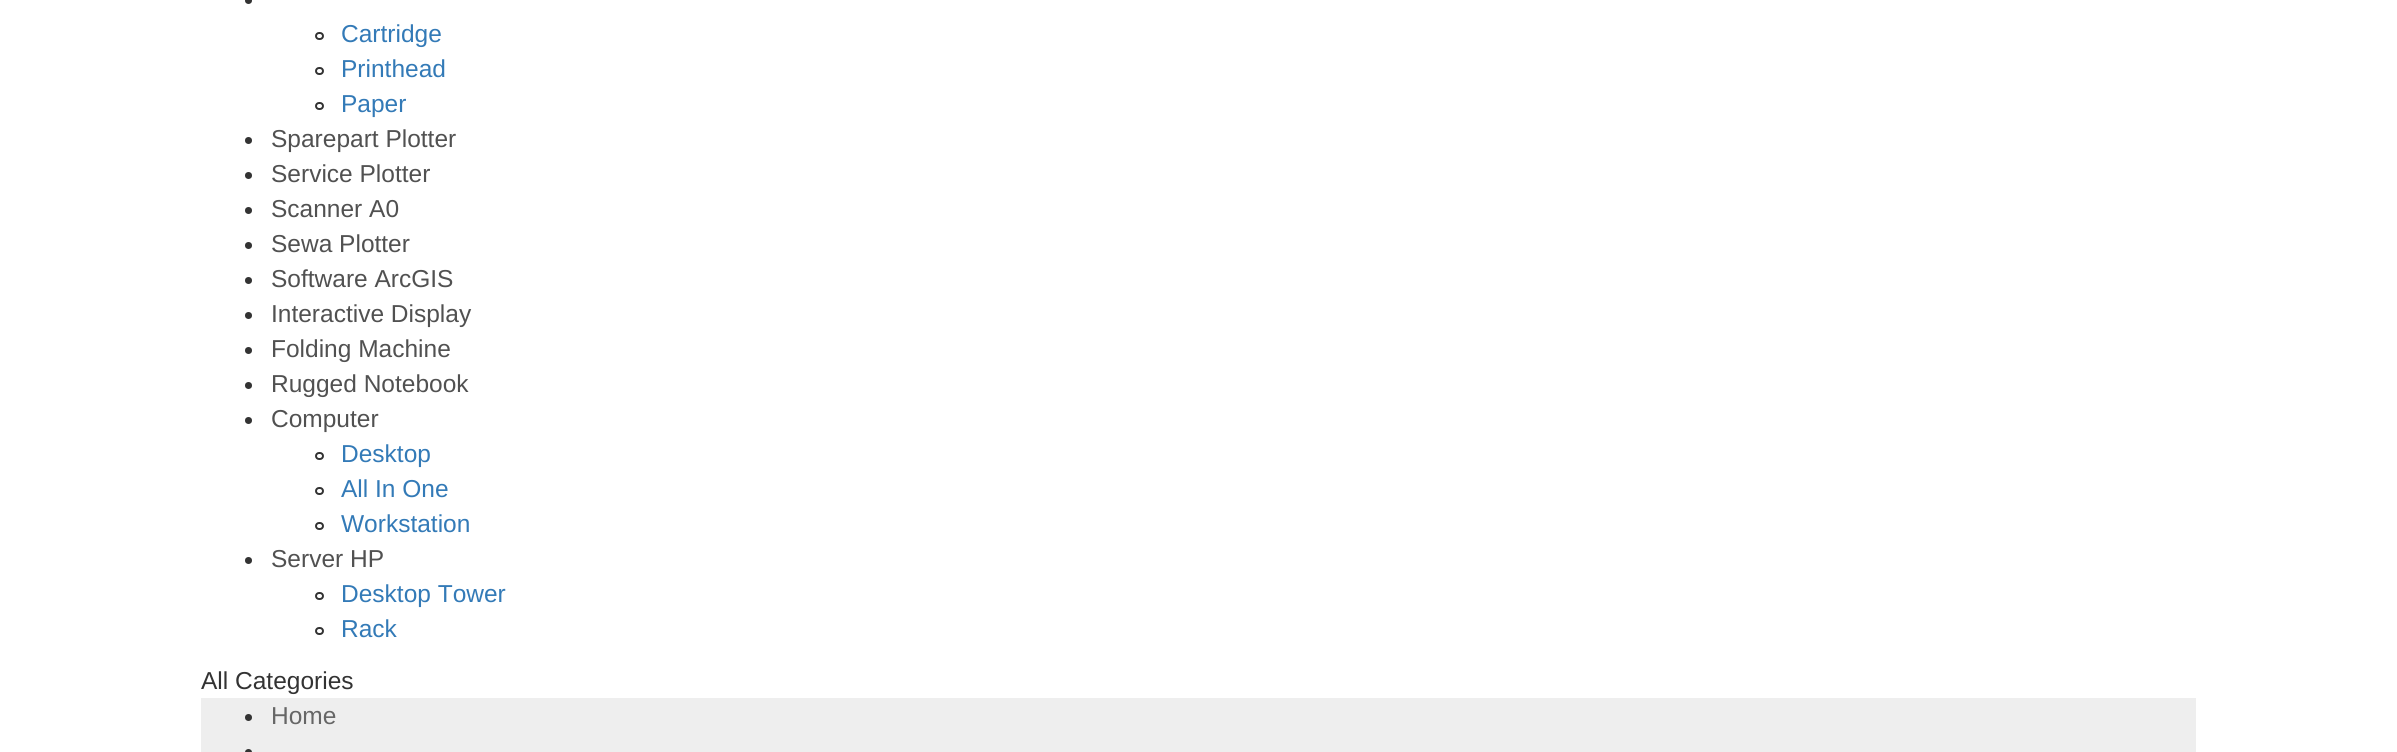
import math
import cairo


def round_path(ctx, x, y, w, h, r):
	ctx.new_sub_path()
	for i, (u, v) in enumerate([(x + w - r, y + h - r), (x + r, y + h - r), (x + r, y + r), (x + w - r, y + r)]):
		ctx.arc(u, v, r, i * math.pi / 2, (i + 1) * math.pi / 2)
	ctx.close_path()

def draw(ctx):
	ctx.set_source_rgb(1, 1, 1)
	ctx.paint()
	ctx.set_source_rgb(0.2, 0.2, 0.2)
	ctx.arc(248.5, 0.5, 3.5, 0, 2 * math.pi)
	ctx.fill()
	round_path(ctx, 316, 33, 7, 6, 3)
	ctx.stroke()
	ctx.select_font_face('Liberation Sans')
	ctx.set_font_size(24.5)
	ctx.set_source_rgb(0.2, 0.478, 0.718)
	ctx.move_to(341, 42)
	ctx.show_text('Cartridge')
	round_path(ctx, 316, 68, 7, 6, 3)
	ctx.set_source_rgb(0.2, 0.2, 0.2)
	ctx.stroke()
	ctx.set_source_rgb(0.2, 0.478, 0.718)
	ctx.move_to(341, 77)
	ctx.show_text('Printhead')
	round_path(ctx, 316, 103, 7, 6, 3)
	ctx.set_source_rgb(0.2, 0.2, 0.2)
	ctx.stroke()
	ctx.set_source_rgb(0.2, 0.478, 0.718)
	ctx.move_to(341, 112)
	ctx.show_text('Paper')
	ctx.set_source_rgb(0.2, 0.2, 0.2)
	ctx.new_path()
	ctx.arc(248.5, 140.5, 3.5, 0, 2 * math.pi)
	ctx.fill()
	ctx.set_source_rgb(0.318, 0.318, 0.318)
	ctx.move_to(271, 147)
	ctx.show_text('Sparepart Plotter')
	ctx.set_source_rgb(0.2, 0.2, 0.2)
	ctx.new_path()
	ctx.arc(248.5, 175.5, 3.5, 0, 2 * math.pi)
	ctx.fill()
	ctx.set_source_rgb(0.318, 0.318, 0.318)
	ctx.move_to(271, 182)
	ctx.show_text('Service Plotter')
	ctx.set_source_rgb(0.2, 0.2, 0.2)
	ctx.new_path()
	ctx.arc(248.5, 210.5, 3.5, 0, 2 * math.pi)
	ctx.fill()
	ctx.set_source_rgb(0.318, 0.318, 0.318)
	ctx.move_to(271, 217)
	ctx.show_text('Scanner A0')
	ctx.set_source_rgb(0.2, 0.2, 0.2)
	ctx.new_path()
	ctx.arc(248.5, 245.5, 3.5, 0, 2 * math.pi)
	ctx.fill()
	ctx.set_source_rgb(0.318, 0.318, 0.318)
	ctx.move_to(271, 252)
	ctx.show_text('Sewa Plotter')
	ctx.set_source_rgb(0.2, 0.2, 0.2)
	ctx.new_path()
	ctx.arc(248.5, 280.5, 3.5, 0, 2 * math.pi)
	ctx.fill()
	ctx.set_source_rgb(0.318, 0.318, 0.318)
	ctx.move_to(271, 287)
	ctx.show_text('Software ArcGIS')
	ctx.set_source_rgb(0.2, 0.2, 0.2)
	ctx.new_path()
	ctx.arc(248.5, 315.5, 3.5, 0, 2 * math.pi)
	ctx.fill()
	ctx.set_source_rgb(0.318, 0.318, 0.318)
	ctx.move_to(271, 322)
	ctx.show_text('Interactive Display')
	ctx.set_source_rgb(0.2, 0.2, 0.2)
	ctx.new_path()
	ctx.arc(248.5, 350.5, 3.5, 0, 2 * math.pi)
	ctx.fill()
	ctx.set_source_rgb(0.318, 0.318, 0.318)
	ctx.move_to(271, 357)
	ctx.show_text('Folding Machine')
	ctx.set_source_rgb(0.2, 0.2, 0.2)
	ctx.new_path()
	ctx.arc(248.5, 385.5, 3.5, 0, 2 * math.pi)
	ctx.fill()
	ctx.set_source_rgb(0.318, 0.318, 0.318)
	ctx.move_to(271, 392)
	ctx.show_text('Rugged Notebook')
	ctx.set_source_rgb(0.2, 0.2, 0.2)
	ctx.new_path()
	ctx.arc(248.5, 420.5, 3.5, 0, 2 * math.pi)
	ctx.fill()
	ctx.set_source_rgb(0.318, 0.318, 0.318)
	ctx.move_to(271, 427)
	ctx.show_text('Computer')
	round_path(ctx, 316, 453, 7, 6, 3)
	ctx.set_source_rgb(0.2, 0.2, 0.2)
	ctx.stroke()
	ctx.set_source_rgb(0.2, 0.478, 0.718)
	ctx.move_to(341, 462)
	ctx.show_text('Desktop')
	round_path(ctx, 316, 488, 7, 6, 3)
	ctx.set_source_rgb(0.2, 0.2, 0.2)
	ctx.stroke()
	ctx.set_source_rgb(0.2, 0.478, 0.718)
	ctx.move_to(341, 497)
	ctx.show_text('All In One')
	round_path(ctx, 316, 523, 7, 6, 3)
	ctx.set_source_rgb(0.2, 0.2, 0.2)
	ctx.stroke()
	ctx.set_source_rgb(0.2, 0.478, 0.718)
	ctx.move_to(341, 532)
	ctx.show_text('Workstation')
	ctx.set_source_rgb(0.2, 0.2, 0.2)
	ctx.new_path()
	ctx.arc(248.5, 560.5, 3.5, 0, 2 * math.pi)
	ctx.fill()
	ctx.set_source_rgb(0.318, 0.318, 0.318)
	ctx.move_to(271, 567)
	ctx.show_text('Server HP')
	round_path(ctx, 316, 593, 7, 6, 3)
	ctx.set_source_rgb(0.2, 0.2, 0.2)
	ctx.stroke()
	ctx.set_source_rgb(0.2, 0.478, 0.718)
	ctx.move_to(341, 602)
	ctx.show_text('Desktop Tower')
	round_path(ctx, 316, 628, 7, 6, 3)
	ctx.set_source_rgb(0.2, 0.2, 0.2)
	ctx.stroke()
	ctx.set_source_rgb(0.2, 0.478, 0.718)
	ctx.move_to(341, 637)
	ctx.show_text('Rack')
	ctx.set_source_rgb(0.2, 0.2, 0.2)
	ctx.move_to(201, 689)
	ctx.show_text('All Categories')
	ctx.set_source_rgb(0.933, 0.933, 0.933)
	ctx.rectangle(201, 698, 1995, 54)
	ctx.fill()
	ctx.set_source_rgb(0.2, 0.2, 0.2)
	ctx.arc(248.5, 717.5, 3.5, 0, 2 * math.pi)
	ctx.fill()
	ctx.set_source_rgb(0.4, 0.4, 0.4)
	ctx.move_to(271, 724)
	ctx.show_text('Home')
	ctx.set_source_rgb(0.2, 0.2, 0.2)
	ctx.new_path()
	ctx.arc(248.5, 752.5, 3.5, 0, 2 * math.pi)
	ctx.fill()


surface = cairo.ImageSurface(cairo.FORMAT_RGB24, 2397, 752)
ctx = cairo.Context(surface)
options = cairo.FontOptions()
options.set_hint_metrics(cairo.HINT_METRICS_OFF)
options.set_hint_style(cairo.HINT_STYLE_NONE)
ctx.set_font_options(options)
ctx.set_miter_limit(4)
draw(ctx)
surface.write_to_png('image.png')
